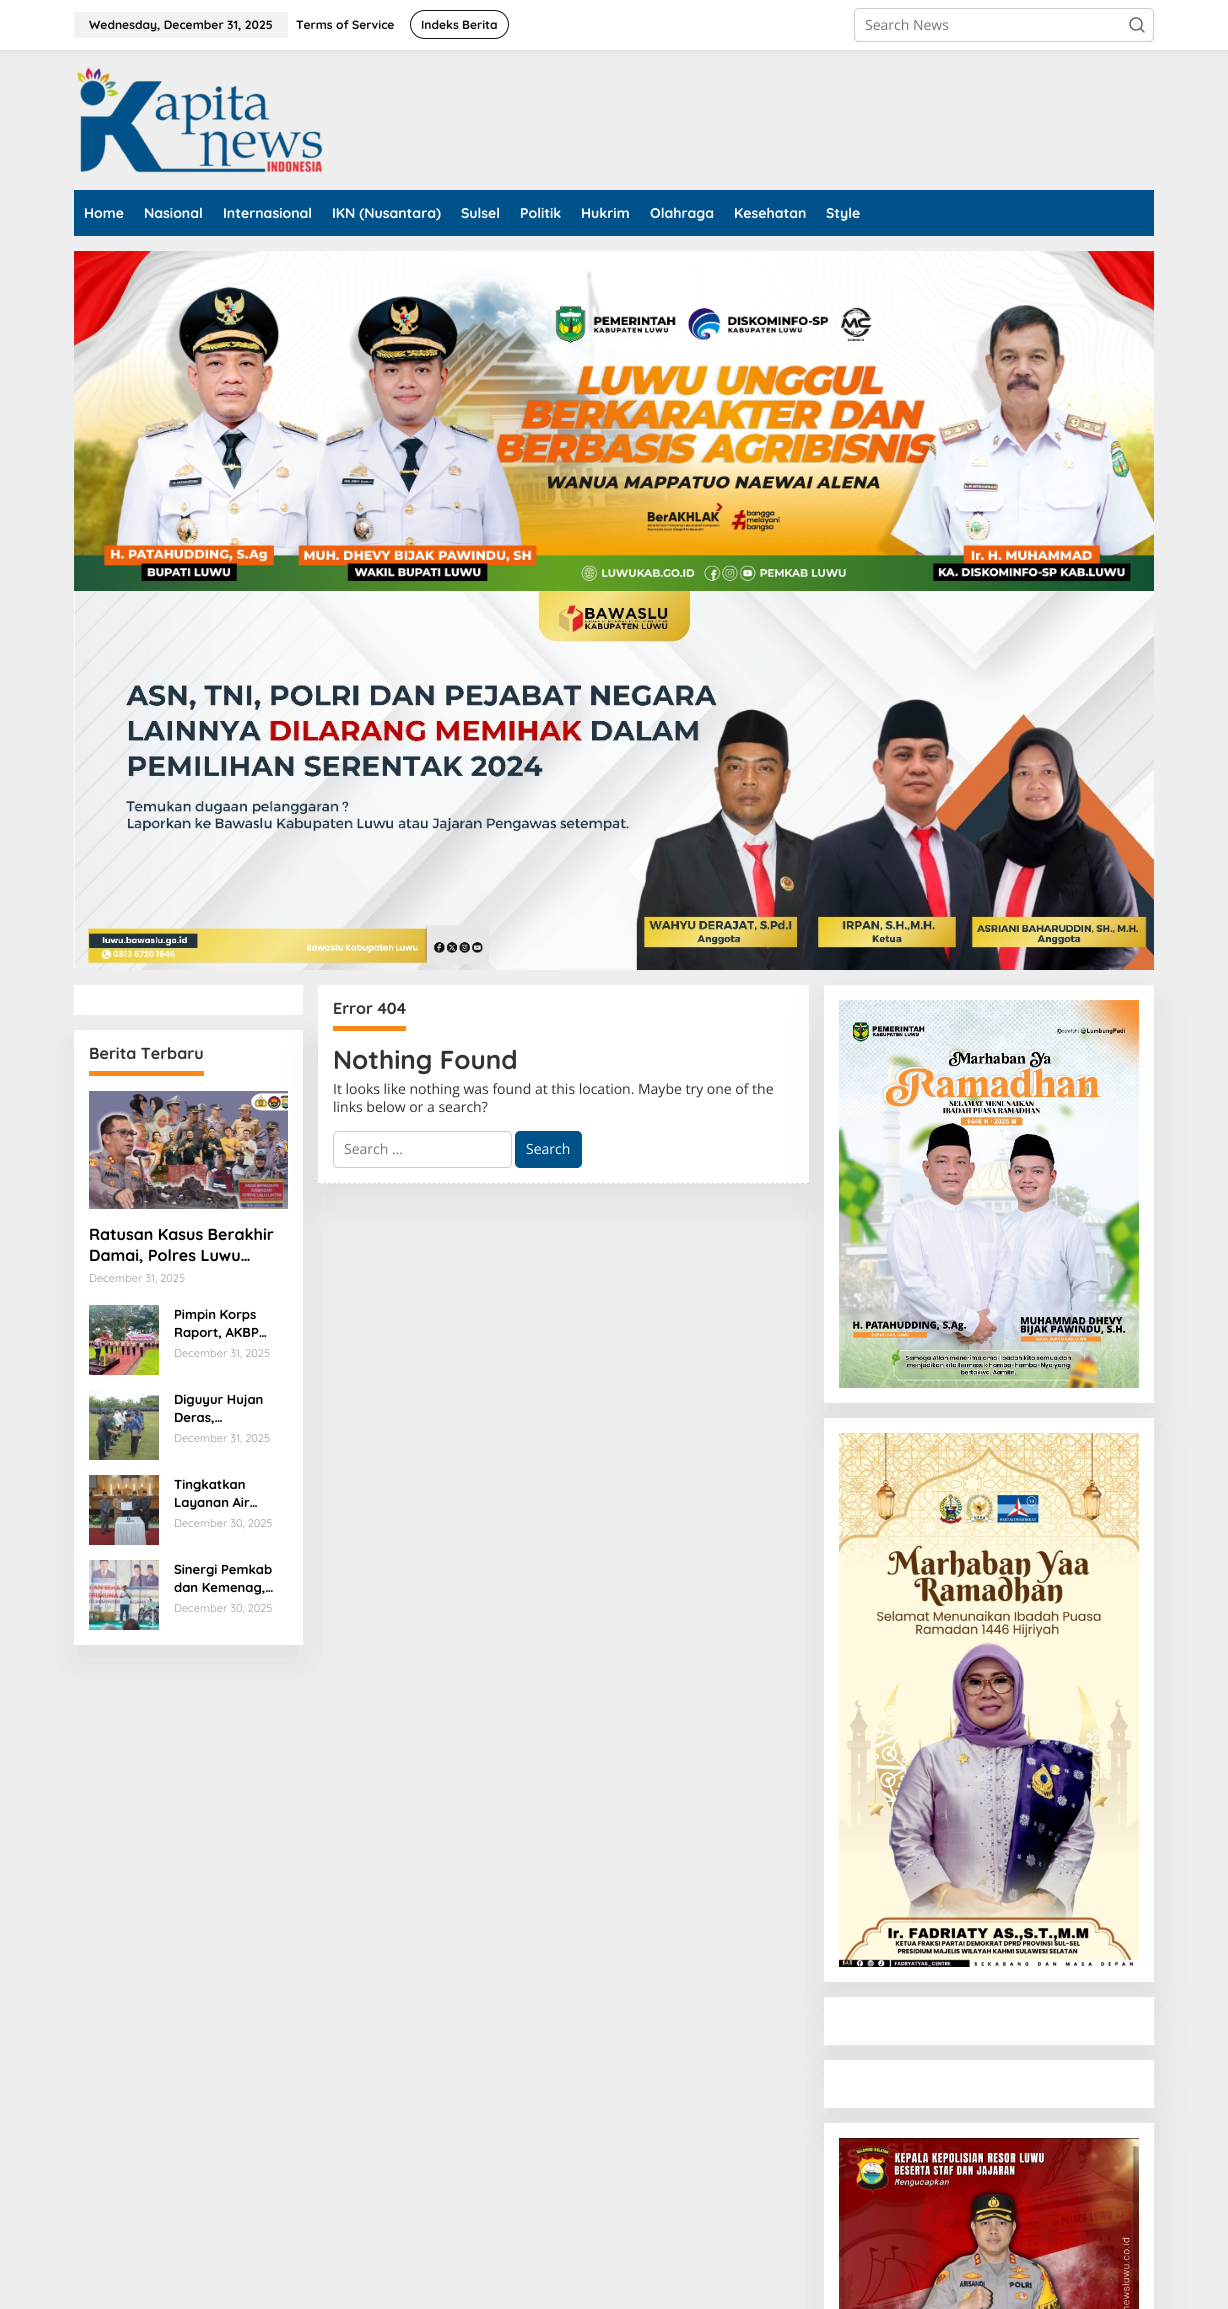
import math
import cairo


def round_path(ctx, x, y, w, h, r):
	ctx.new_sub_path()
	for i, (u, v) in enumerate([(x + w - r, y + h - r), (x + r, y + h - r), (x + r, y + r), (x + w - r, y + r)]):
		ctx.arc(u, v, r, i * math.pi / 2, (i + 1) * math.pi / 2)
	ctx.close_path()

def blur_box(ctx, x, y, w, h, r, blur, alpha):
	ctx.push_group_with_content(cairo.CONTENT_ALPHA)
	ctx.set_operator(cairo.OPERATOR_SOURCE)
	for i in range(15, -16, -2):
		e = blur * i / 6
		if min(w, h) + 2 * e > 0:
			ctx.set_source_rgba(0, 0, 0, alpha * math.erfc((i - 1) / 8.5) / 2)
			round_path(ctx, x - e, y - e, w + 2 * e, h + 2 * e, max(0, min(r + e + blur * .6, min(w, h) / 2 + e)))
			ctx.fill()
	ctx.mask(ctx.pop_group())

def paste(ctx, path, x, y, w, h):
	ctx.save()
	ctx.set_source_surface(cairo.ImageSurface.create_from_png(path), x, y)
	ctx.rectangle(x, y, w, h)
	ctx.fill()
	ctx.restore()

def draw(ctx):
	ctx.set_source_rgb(0.933, 0.933, 0.933)
	ctx.paint()
	ctx.set_source_rgb(0, 0, 0)
	blur_box(ctx, 0, 0, 1228, 50, 0, 5, 0.1)
	ctx.set_source_rgb(1, 1, 1)
	ctx.rectangle(0, 0, 1228, 50)
	ctx.fill()
	ctx.set_source_rgb(0.949, 0.949, 0.949)
	ctx.rectangle(74, 12, 214, 26)
	ctx.fill()
	ctx.select_font_face('Quicksand', cairo.FONT_SLANT_NORMAL, cairo.FONT_WEIGHT_BOLD)
	ctx.set_font_size(12)
	ctx.set_source_rgb(0.067, 0.067, 0.067)
	ctx.move_to(89, 29)
	ctx.show_text('Wednesday, December 31, 2025')
	ctx.move_to(296, 29)
	ctx.show_text('Terms of Service')
	round_path(ctx, 410.5, 10.5, 98, 28, 14)
	ctx.set_line_width(1)
	ctx.stroke()
	ctx.move_to(421, 29)
	ctx.show_text('Indeks Berita')
	round_path(ctx, 854.5, 8.5, 299, 33, 4.5)
	ctx.set_source_rgb(0.8, 0.8, 0.8)
	ctx.stroke()
	ctx.select_font_face('Open Sans')
	ctx.set_font_size(14)
	ctx.set_source_rgb(0.459, 0.459, 0.459)
	ctx.move_to(865, 30)
	ctx.show_text('Search News')
	ctx.new_path()
	ctx.arc(1136, 24, 6, 0, 2 * math.pi)
	ctx.set_source_rgb(0.4, 0.4, 0.4)
	ctx.set_line_width(1.5)
	ctx.stroke()
	ctx.new_path()
	ctx.move_to(1144, 32)
	ctx.line_to(1140.5, 28.5)
	ctx.set_line_cap(cairo.LINE_CAP_ROUND)
	ctx.set_line_join(cairo.LINE_JOIN_ROUND)
	ctx.stroke()
	paste(ctx, 'media/1.png', 77, 67, 246, 106)
	ctx.set_source_rgb(0, 0.322, 0.541)
	ctx.rectangle(74, 190, 1080, 46)
	ctx.fill()
	ctx.select_font_face('Quicksand', cairo.FONT_SLANT_NORMAL, cairo.FONT_WEIGHT_BOLD)
	ctx.set_source_rgb(1, 1, 1)
	for x, y, s in [
		(84, 218, 'Home'),
		(144, 218, 'Nasional'),
		(223, 218, 'Internasional'),
		(332, 218, 'IKN (Nusantara)'),
		(461, 218, 'Sulsel'),
		(520, 218, 'Politik'),
		(581, 218, 'Hukrim'),
		(650, 218, 'Olahraga'),
		(734, 218, 'Kesehatan'),
		(826, 218, 'Style'),
	]:
		ctx.move_to(x, y)
		ctx.show_text(s)
	paste(ctx, 'media/2.png', 74, 251, 1080, 340)
	paste(ctx, 'media/3.png', 74, 591, 1080, 379)
	ctx.rectangle(74, 985, 229, 30)
	ctx.fill()
	ctx.set_source_rgb(0, 0, 0)
	blur_box(ctx, 74, 1046, 229, 615, 0, 22.5, 0.07)
	ctx.set_source_rgb(1, 1, 1)
	ctx.rectangle(74, 1030, 229, 615)
	ctx.fill()
	ctx.set_source_rgb(0.996, 0.537, 0.09)
	ctx.rectangle(89, 1071, 115, 5)
	ctx.fill()
	ctx.set_font_size(16)
	ctx.set_source_rgb(0.196, 0.196, 0.2)
	ctx.move_to(89, 1059)
	ctx.show_text('Berita Terbaru')
	paste(ctx, 'media/4.png', 89, 1091, 199, 118)
	ctx.set_source_rgb(0, 0, 0)
	ctx.move_to(89, 1240)
	ctx.show_text('Ratusan Kasus Berakhir')
	ctx.move_to(89, 1261)
	ctx.show_text('Damai, Polres Luwu…')
	ctx.select_font_face('Quicksand')
	ctx.set_font_size(11)
	ctx.set_source_rgb(0.6, 0.6, 0.6)
	ctx.move_to(89, 1282)
	ctx.show_text('December 31, 2025')
	paste(ctx, 'media/5.png', 89, 1305, 70, 70)
	ctx.select_font_face('Quicksand', cairo.FONT_SLANT_NORMAL, cairo.FONT_WEIGHT_BOLD)
	ctx.set_font_size(13)
	ctx.set_source_rgb(0, 0, 0)
	ctx.move_to(174, 1319)
	ctx.show_text('Pimpin Korps')
	ctx.move_to(174, 1337)
	ctx.show_text('Raport, AKBP…')
	ctx.select_font_face('Quicksand')
	ctx.set_font_size(11)
	ctx.set_source_rgb(0.6, 0.6, 0.6)
	ctx.move_to(174, 1357)
	ctx.show_text('December 31, 2025')
	paste(ctx, 'media/6.png', 89, 1390, 70, 70)
	ctx.select_font_face('Quicksand', cairo.FONT_SLANT_NORMAL, cairo.FONT_WEIGHT_BOLD)
	ctx.set_font_size(13)
	ctx.set_source_rgb(0, 0, 0)
	ctx.move_to(174, 1404)
	ctx.show_text('Diguyur Hujan')
	ctx.move_to(174, 1422)
	ctx.show_text('Deras,…')
	ctx.select_font_face('Quicksand')
	ctx.set_font_size(11)
	ctx.set_source_rgb(0.6, 0.6, 0.6)
	ctx.move_to(174, 1442)
	ctx.show_text('December 31, 2025')
	paste(ctx, 'media/7.png', 89, 1475, 70, 70)
	ctx.select_font_face('Quicksand', cairo.FONT_SLANT_NORMAL, cairo.FONT_WEIGHT_BOLD)
	ctx.set_font_size(13)
	ctx.set_source_rgb(0, 0, 0)
	ctx.move_to(174, 1489)
	ctx.show_text('Tingkatkan')
	ctx.move_to(174, 1507)
	ctx.show_text('Layanan Air…')
	ctx.select_font_face('Quicksand')
	ctx.set_font_size(11)
	ctx.set_source_rgb(0.6, 0.6, 0.6)
	ctx.move_to(174, 1527)
	ctx.show_text('December 30, 2025')
	paste(ctx, 'media/8.png', 89, 1560, 70, 70)
	ctx.select_font_face('Quicksand', cairo.FONT_SLANT_NORMAL, cairo.FONT_WEIGHT_BOLD)
	ctx.set_font_size(13)
	ctx.set_source_rgb(0, 0, 0)
	ctx.move_to(174, 1574)
	ctx.show_text('Sinergi Pemkab')
	ctx.move_to(174, 1592)
	ctx.show_text('dan Kemenag,…')
	ctx.select_font_face('Quicksand')
	ctx.set_font_size(11)
	ctx.set_source_rgb(0.6, 0.6, 0.6)
	ctx.move_to(174, 1612)
	ctx.show_text('December 30, 2025')
	ctx.set_source_rgb(0, 0, 0)
	blur_box(ctx, 318, 1047, 491, 153, 0, 22.5, 0.07)
	ctx.set_source_rgb(1, 1, 1)
	ctx.rectangle(318, 985, 491, 199)
	ctx.fill()
	ctx.set_source_rgb(0.996, 0.537, 0.09)
	ctx.rectangle(333, 1026, 73, 5)
	ctx.fill()
	ctx.select_font_face('Quicksand', cairo.FONT_SLANT_NORMAL, cairo.FONT_WEIGHT_BOLD)
	ctx.set_font_size(16)
	ctx.set_source_rgb(0.196, 0.196, 0.2)
	ctx.move_to(333, 1014)
	ctx.show_text('Error 404')
	ctx.new_path()
	ctx.move_to(318, 1183.5)
	ctx.line_to(809, 1183.5)
	ctx.set_source_rgb(0.851, 0.851, 0.851)
	ctx.set_line_width(1)
	ctx.set_line_cap(cairo.LINE_CAP_BUTT)
	ctx.set_line_join(cairo.LINE_JOIN_MITER)
	ctx.set_dash([3, 1.98])
	ctx.stroke()
	ctx.set_font_size(26)
	ctx.set_source_rgb(0.196, 0.196, 0.2)
	ctx.move_to(333, 1069)
	ctx.show_text('Nothing Found')
	ctx.select_font_face('Open Sans')
	ctx.set_font_size(14)
	ctx.move_to(333, 1094)
	ctx.show_text('It looks like nothing was found at this location. Maybe try one of the')
	ctx.move_to(333, 1112)
	ctx.show_text('links below or a search?')
	round_path(ctx, 333.5, 1131.5, 178, 36, 4.5)
	ctx.set_source_rgb(0.8, 0.8, 0.8)
	ctx.set_dash([])
	ctx.stroke()
	ctx.set_source_rgb(0.459, 0.459, 0.459)
	ctx.move_to(344, 1154)
	ctx.show_text('Search …')
	ctx.set_source_rgb(0, 0.322, 0.541)
	round_path(ctx, 515.5, 1131.5, 66, 36, 4.5)
	ctx.fill_preserve()
	ctx.stroke()
	ctx.set_source_rgb(1, 1, 1)
	ctx.move_to(526, 1154)
	ctx.show_text('Search')
	ctx.set_source_rgb(0, 0, 0)
	blur_box(ctx, 824, 1001, 330, 418, 0, 22.5, 0.07)
	ctx.set_source_rgb(1, 1, 1)
	ctx.rectangle(824, 985, 330, 418)
	ctx.fill()
	ctx.set_source_rgb(0, 0, 0)
	blur_box(ctx, 824, 1434, 330, 564, 0, 22.5, 0.07)
	paste(ctx, 'media/9.png', 839, 1000, 300, 388)
	ctx.set_source_rgb(1, 1, 1)
	ctx.rectangle(824, 1418, 330, 564)
	ctx.fill()
	ctx.set_source_rgb(0, 0, 0)
	blur_box(ctx, 824, 2013, 330, 48, 0, 22.5, 0.07)
	paste(ctx, 'media/10.png', 839, 1433, 300, 534)
	ctx.set_source_rgb(1, 1, 1)
	ctx.rectangle(824, 1997, 330, 48)
	ctx.fill()
	ctx.set_source_rgb(0, 0, 0)
	blur_box(ctx, 824, 2076, 330, 48, 0, 22.5, 0.07)
	ctx.set_source_rgb(1, 1, 1)
	ctx.rectangle(824, 2060, 330, 48)
	ctx.fill()
	ctx.set_source_rgb(0, 0, 0)
	blur_box(ctx, 824, 2139, 330, 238, 0, 22.5, 0.07)
	ctx.set_source_rgb(1, 1, 1)
	ctx.rectangle(824, 2123, 330, 186)
	ctx.fill()
	paste(ctx, 'media/11.png', 839, 2138, 300, 171)


surface = cairo.ImageSurface(cairo.FORMAT_RGB24, 1228, 2309)
ctx = cairo.Context(surface)
options = cairo.FontOptions()
options.set_hint_metrics(cairo.HINT_METRICS_OFF)
options.set_hint_style(cairo.HINT_STYLE_NONE)
ctx.set_font_options(options)
ctx.set_miter_limit(4)
draw(ctx)
surface.write_to_png('image.png')
